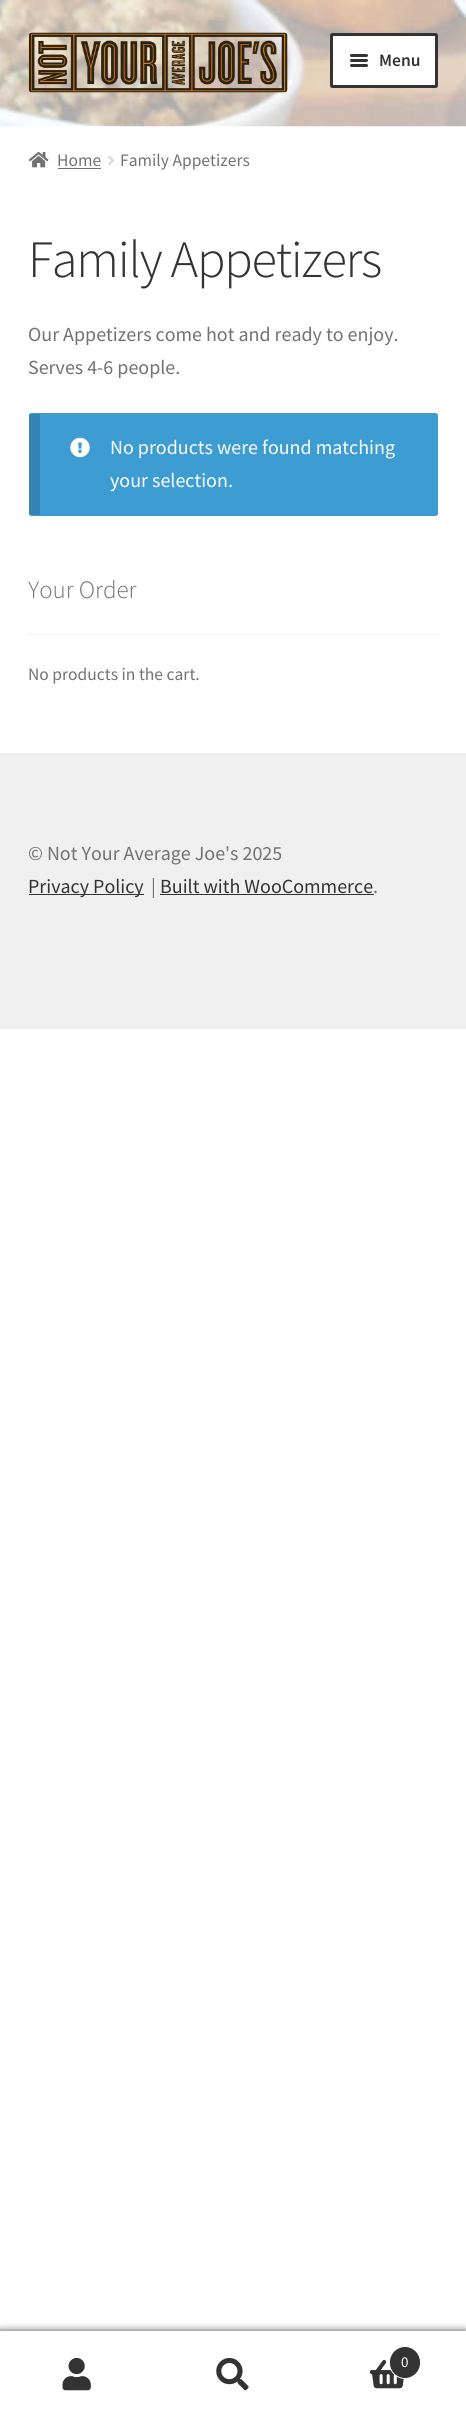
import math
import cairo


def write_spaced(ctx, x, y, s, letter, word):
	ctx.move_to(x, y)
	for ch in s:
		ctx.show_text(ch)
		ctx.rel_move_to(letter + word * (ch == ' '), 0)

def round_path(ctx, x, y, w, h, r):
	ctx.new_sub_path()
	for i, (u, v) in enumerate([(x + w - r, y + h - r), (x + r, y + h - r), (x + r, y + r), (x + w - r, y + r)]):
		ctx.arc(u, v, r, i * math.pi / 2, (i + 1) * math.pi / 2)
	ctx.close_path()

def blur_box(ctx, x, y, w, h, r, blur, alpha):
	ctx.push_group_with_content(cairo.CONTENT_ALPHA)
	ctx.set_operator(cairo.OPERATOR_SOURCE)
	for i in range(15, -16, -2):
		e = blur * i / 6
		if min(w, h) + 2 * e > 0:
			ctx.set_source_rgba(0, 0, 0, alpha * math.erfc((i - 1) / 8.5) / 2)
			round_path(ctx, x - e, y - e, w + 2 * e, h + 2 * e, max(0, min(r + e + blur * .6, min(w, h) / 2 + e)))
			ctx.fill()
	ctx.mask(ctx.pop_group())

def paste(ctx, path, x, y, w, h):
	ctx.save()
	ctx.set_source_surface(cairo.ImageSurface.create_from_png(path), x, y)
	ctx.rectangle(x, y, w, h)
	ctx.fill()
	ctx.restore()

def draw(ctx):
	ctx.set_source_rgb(1, 1, 1)
	ctx.paint()
	paste(ctx, 'media/1.png', 0, 0, 466, 127)
	paste(ctx, 'media/2.png', 28, 32, 260, 61)
	ctx.set_source_rgb(1, 1, 1)
	round_path(ctx, 331.5, 34.5, 105, 52, 1)
	ctx.fill_preserve()
	ctx.set_source_rgb(0.2, 0.2, 0.2)
	ctx.set_line_width(3)
	ctx.stroke()
	round_path(ctx, 350, 54, 18, 3, 1.5)
	ctx.fill()
	round_path(ctx, 350, 59, 18, 3, 1.5)
	ctx.fill()
	ctx.select_font_face('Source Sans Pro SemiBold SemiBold')
	ctx.set_font_size(17.5)
	ctx.move_to(379, 66)
	ctx.show_text('Menu')
	round_path(ctx, 350, 64, 18, 3, 1.5)
	ctx.fill()
	paste(ctx, 'media/3.png', 28, 152, 21, 16)
	ctx.select_font_face('Source Sans Pro')
	ctx.set_source_rgb(0.447, 0.447, 0.447)
	ctx.move_to(57, 166)
	ctx.show_text('Home')
	ctx.rectangle(58, 168, 43, 1)
	ctx.fill()
	paste(ctx, 'media/4.png', 108, 155, 7, 10)
	ctx.move_to(120, 166)
	ctx.show_text('Family Appetizers')
	ctx.select_font_face('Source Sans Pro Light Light')
	ctx.set_font_size(52.5)
	ctx.set_source_rgb(0.2, 0.2, 0.2)
	write_spaced(ctx, 28, 277, 'Family Appetizers', -1.25, 0)
	ctx.select_font_face('Source Sans Pro')
	ctx.set_font_size(20)
	ctx.set_source_rgb(0.447, 0.447, 0.447)
	ctx.move_to(28, 341)
	ctx.show_text('Our Appetizers come hot and ready to enjoy.')
	ctx.move_to(28, 374)
	ctx.show_text('Serves 4-6 people.')
	ctx.set_source_rgb(0.239, 0.612, 0.824)
	round_path(ctx, 29, 413, 409, 103, 2.5)
	ctx.fill()
	ctx.set_source_rgba(0, 0, 0, 0.15)
	ctx.rectangle(29, 414, 11, 101)
	ctx.fill()
	paste(ctx, 'media/5.png', 70, 437, 20, 21)
	ctx.set_source_rgb(1, 1, 1)
	ctx.move_to(110, 454)
	ctx.show_text('No products were found matching')
	ctx.move_to(110, 487)
	ctx.show_text('your selection.')
	ctx.set_source_rgb(0.949, 0.949, 0.949)
	ctx.rectangle(29, 634, 409, 1)
	ctx.fill()
	ctx.select_font_face('Source Sans Pro Light Light')
	ctx.set_font_size(25)
	ctx.set_source_rgb(0.447, 0.447, 0.447)
	ctx.move_to(28, 598)
	ctx.show_text('Your Order')
	ctx.select_font_face('Source Sans Pro')
	ctx.set_font_size(17.5)
	ctx.move_to(28, 680)
	ctx.show_text('No products in the cart.')
	ctx.set_source_rgb(0.941, 0.941, 0.941)
	ctx.rectangle(0, 753, 466, 276)
	ctx.fill()
	ctx.set_font_size(20)
	ctx.set_source_rgb(0.447, 0.447, 0.447)
	ctx.move_to(28, 860)
	ctx.show_text('© Not Your Average Joe\'s 2025')
	ctx.set_source_rgb(0.2, 0.2, 0.2)
	ctx.rectangle(29, 894, 115, 1)
	ctx.fill()
	ctx.move_to(28, 893)
	ctx.show_text('Privacy Policy')
	ctx.set_source_rgb(0.447, 0.447, 0.447)
	ctx.move_to(151, 893)
	ctx.show_text('|')
	ctx.set_source_rgb(0.2, 0.2, 0.2)
	ctx.move_to(160, 893)
	ctx.show_text('Built with WooCommerce')
	ctx.rectangle(160, 894, 214, 1)
	ctx.fill()
	ctx.set_source_rgb(0.447, 0.447, 0.447)
	ctx.move_to(373, 893)
	ctx.show_text('.')
	ctx.set_source_rgb(0, 0, 0)
	blur_box(ctx, 0, 2331, 466, 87, 0, 4, 0.7)
	ctx.set_source_rgb(1, 1, 1)
	ctx.rectangle(0, 2331, 466, 2)
	ctx.fill()
	ctx.rectangle(0, 2333, 466, 84)
	ctx.fill()
	paste(ctx, 'media/6.png', 62, 2357, 29, 34)
	paste(ctx, 'media/7.png', 216, 2357, 33, 34)
	paste(ctx, 'media/8.png', 370, 2360, 34, 29)
	ctx.set_source_rgb(0.2, 0.2, 0.2)
	round_path(ctx, 389.5, 2346.5, 31, 32, 15.5)
	ctx.fill_preserve()
	ctx.set_source_rgb(1, 1, 1)
	ctx.set_line_width(1)
	ctx.stroke()
	ctx.set_font_size(15)
	ctx.move_to(401, 2367)
	ctx.show_text('0')


surface = cairo.ImageSurface(cairo.FORMAT_RGB24, 466, 2417)
ctx = cairo.Context(surface)
options = cairo.FontOptions()
options.set_hint_metrics(cairo.HINT_METRICS_OFF)
options.set_hint_style(cairo.HINT_STYLE_NONE)
ctx.set_font_options(options)
ctx.set_miter_limit(4)
draw(ctx)
surface.write_to_png('image.png')
